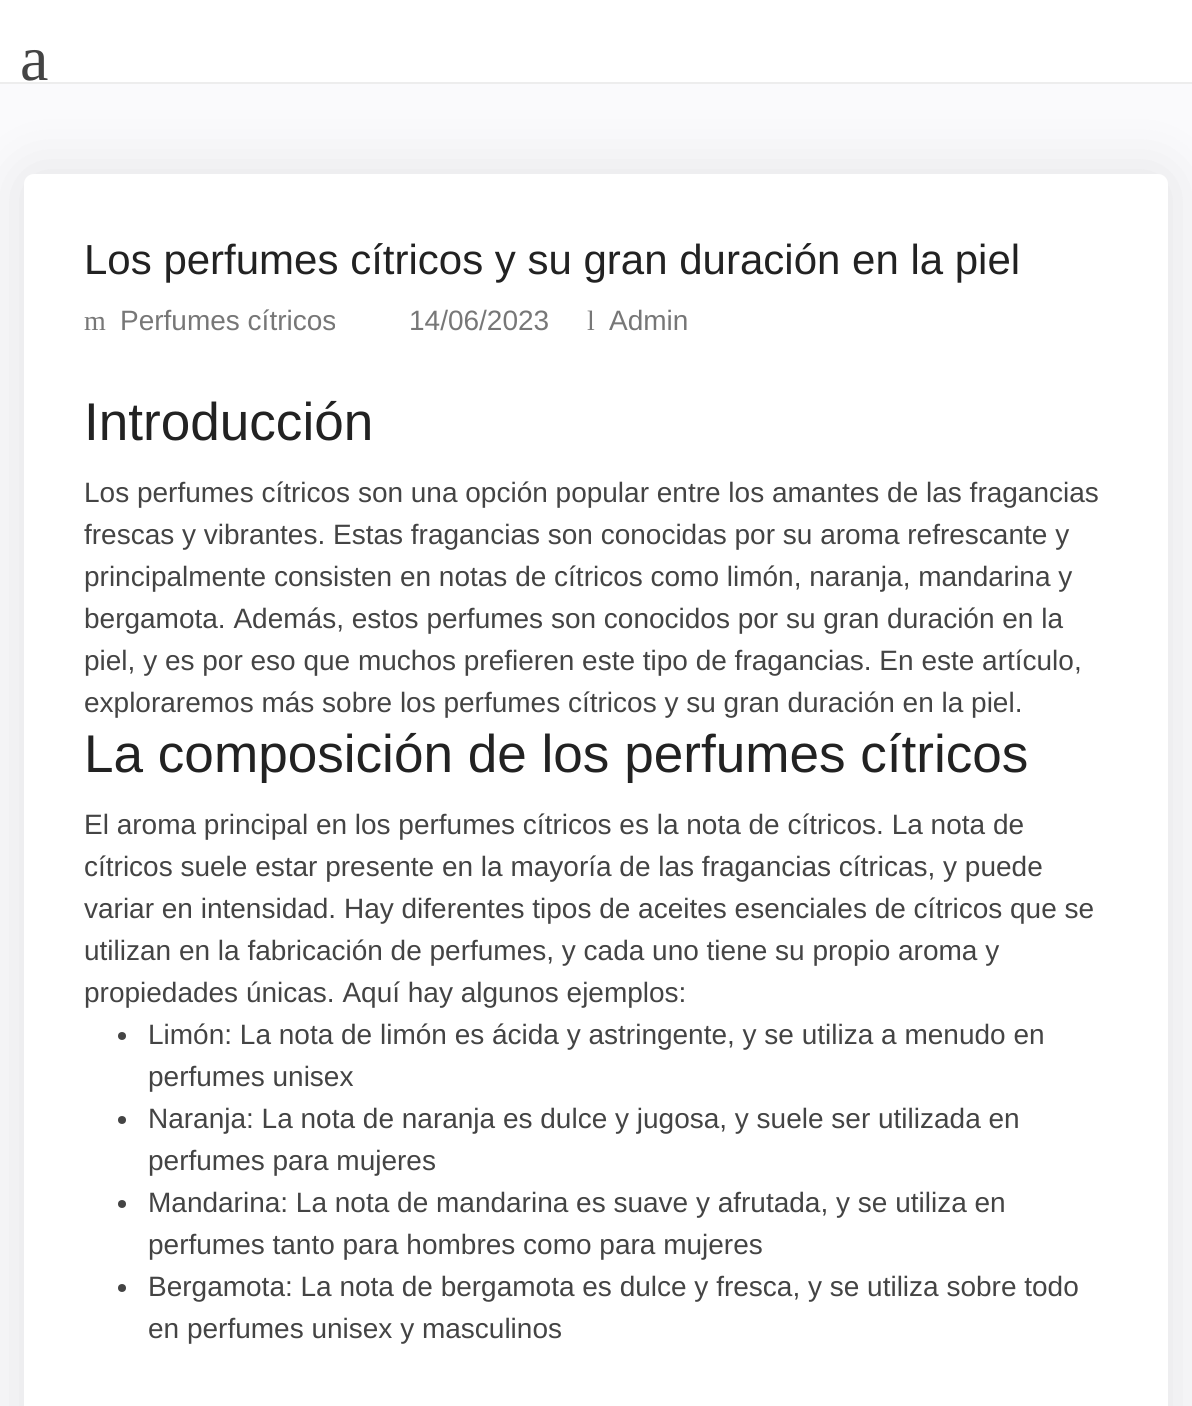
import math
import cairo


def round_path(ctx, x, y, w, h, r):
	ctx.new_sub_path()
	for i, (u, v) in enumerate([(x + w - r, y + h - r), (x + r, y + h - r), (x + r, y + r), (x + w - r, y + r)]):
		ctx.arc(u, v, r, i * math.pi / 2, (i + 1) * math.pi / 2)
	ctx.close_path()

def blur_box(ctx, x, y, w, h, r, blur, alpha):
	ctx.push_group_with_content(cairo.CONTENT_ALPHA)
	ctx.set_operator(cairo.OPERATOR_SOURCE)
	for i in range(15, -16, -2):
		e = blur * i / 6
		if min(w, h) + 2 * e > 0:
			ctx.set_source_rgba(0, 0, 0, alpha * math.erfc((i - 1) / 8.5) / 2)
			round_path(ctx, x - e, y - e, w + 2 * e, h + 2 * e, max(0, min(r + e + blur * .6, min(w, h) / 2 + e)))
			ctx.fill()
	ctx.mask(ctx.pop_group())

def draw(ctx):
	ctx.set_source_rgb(1, 1, 1)
	ctx.paint()
	ctx.set_source_rgb(0.98, 0.98, 0.988)
	ctx.rectangle(0, 84, 1192, 1322)
	ctx.fill()
	ctx.set_source_rgb(0, 0, 0)
	blur_box(ctx, 24, 174, 1144, 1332, 10, 30, 0.1)
	ctx.set_source_rgb(0.929, 0.929, 0.929)
	ctx.rectangle(0, 82, 1192, 2)
	ctx.fill()
	ctx.select_font_face('Liberation Serif')
	ctx.set_font_size(64)
	ctx.set_source_rgb(0.267, 0.267, 0.267)
	ctx.move_to(20, 80)
	ctx.show_text('a')
	ctx.set_source_rgb(1, 1, 1)
	round_path(ctx, 24, 174, 1144, 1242, 10)
	ctx.fill()
	ctx.select_font_face('Liberation Sans')
	ctx.set_font_size(42)
	ctx.set_source_rgb(0.133, 0.133, 0.133)
	ctx.move_to(84, 274)
	ctx.show_text('Los perfumes cítricos y su gran duración en la piel')
	ctx.select_font_face('Liberation Serif')
	ctx.set_font_size(28)
	ctx.set_source_rgb(0.467, 0.467, 0.467)
	ctx.move_to(84, 330)
	ctx.show_text('m')
	ctx.select_font_face('Liberation Sans')
	ctx.move_to(120, 330)
	ctx.show_text('Perfumes cítricos')
	ctx.move_to(409, 330)
	ctx.show_text('14/06/2023')
	ctx.select_font_face('Liberation Serif')
	ctx.move_to(587, 330)
	ctx.show_text('l')
	ctx.select_font_face('Liberation Sans')
	ctx.move_to(609, 330)
	ctx.show_text('Admin')
	ctx.set_font_size(53.1)
	ctx.set_source_rgb(0.133, 0.133, 0.133)
	ctx.move_to(84, 440)
	ctx.show_text('Introducción')
	ctx.set_font_size(28)
	ctx.set_source_rgb(0.267, 0.267, 0.267)
	for x, y, s in [
		(84, 502, 'Los perfumes cítricos son una opción popular entre los amantes de las fragancias'),
		(84, 544, 'frescas y vibrantes. Estas fragancias son conocidas por su aroma refrescante y'),
		(84, 586, 'principalmente consisten en notas de cítricos como limón, naranja, mandarina y'),
		(84, 628, 'bergamota. Además, estos perfumes son conocidos por su gran duración en la'),
		(84, 670, 'piel, y es por eso que muchos prefieren este tipo de fragancias. En este artículo,'),
		(84, 712, 'exploraremos más sobre los perfumes cítricos y su gran duración en la piel.'),
	]:
		ctx.move_to(x, y)
		ctx.show_text(s)
	ctx.set_font_size(53.1)
	ctx.set_source_rgb(0.133, 0.133, 0.133)
	ctx.move_to(84, 772)
	ctx.show_text('La composición de los perfumes cítricos')
	ctx.set_font_size(28)
	ctx.set_source_rgb(0.267, 0.267, 0.267)
	for x, y, s in [
		(84, 834, 'El aroma principal en los perfumes cítricos es la nota de cítricos. La nota de'),
		(84, 876, 'cítricos suele estar presente en la mayoría de las fragancias cítricas, y puede'),
		(84, 918, 'variar en intensidad. Hay diferentes tipos de aceites esenciales de cítricos que se'),
		(84, 960, 'utilizan en la fabricación de perfumes, y cada uno tiene su propio aroma y'),
		(84, 1002, 'propiedades únicas. Aquí hay algunos ejemplos:'),
	]:
		ctx.move_to(x, y)
		ctx.show_text(s)
	ctx.new_path()
	ctx.arc(122, 1036, 4, 0, 2 * math.pi)
	ctx.fill()
	ctx.move_to(148, 1044)
	ctx.show_text('Limón: La nota de limón es ácida y astringente, y se utiliza a menudo en')
	ctx.move_to(148, 1086)
	ctx.show_text('perfumes unisex')
	ctx.new_path()
	ctx.arc(122, 1120, 4, 0, 2 * math.pi)
	ctx.fill()
	ctx.move_to(148, 1128)
	ctx.show_text('Naranja: La nota de naranja es dulce y jugosa, y suele ser utilizada en')
	ctx.move_to(148, 1170)
	ctx.show_text('perfumes para mujeres')
	ctx.new_path()
	ctx.arc(122, 1204, 4, 0, 2 * math.pi)
	ctx.fill()
	ctx.move_to(148, 1212)
	ctx.show_text('Mandarina: La nota de mandarina es suave y afrutada, y se utiliza en')
	ctx.move_to(148, 1254)
	ctx.show_text('perfumes tanto para hombres como para mujeres')
	ctx.new_path()
	ctx.arc(122, 1288, 4, 0, 2 * math.pi)
	ctx.fill()
	ctx.move_to(148, 1296)
	ctx.show_text('Bergamota: La nota de bergamota es dulce y fresca, y se utiliza sobre todo')
	ctx.move_to(148, 1338)
	ctx.show_text('en perfumes unisex y masculinos')


surface = cairo.ImageSurface(cairo.FORMAT_RGB24, 1192, 1406)
ctx = cairo.Context(surface)
options = cairo.FontOptions()
options.set_hint_metrics(cairo.HINT_METRICS_OFF)
options.set_hint_style(cairo.HINT_STYLE_NONE)
ctx.set_font_options(options)
ctx.set_miter_limit(4)
draw(ctx)
surface.write_to_png('image.png')
